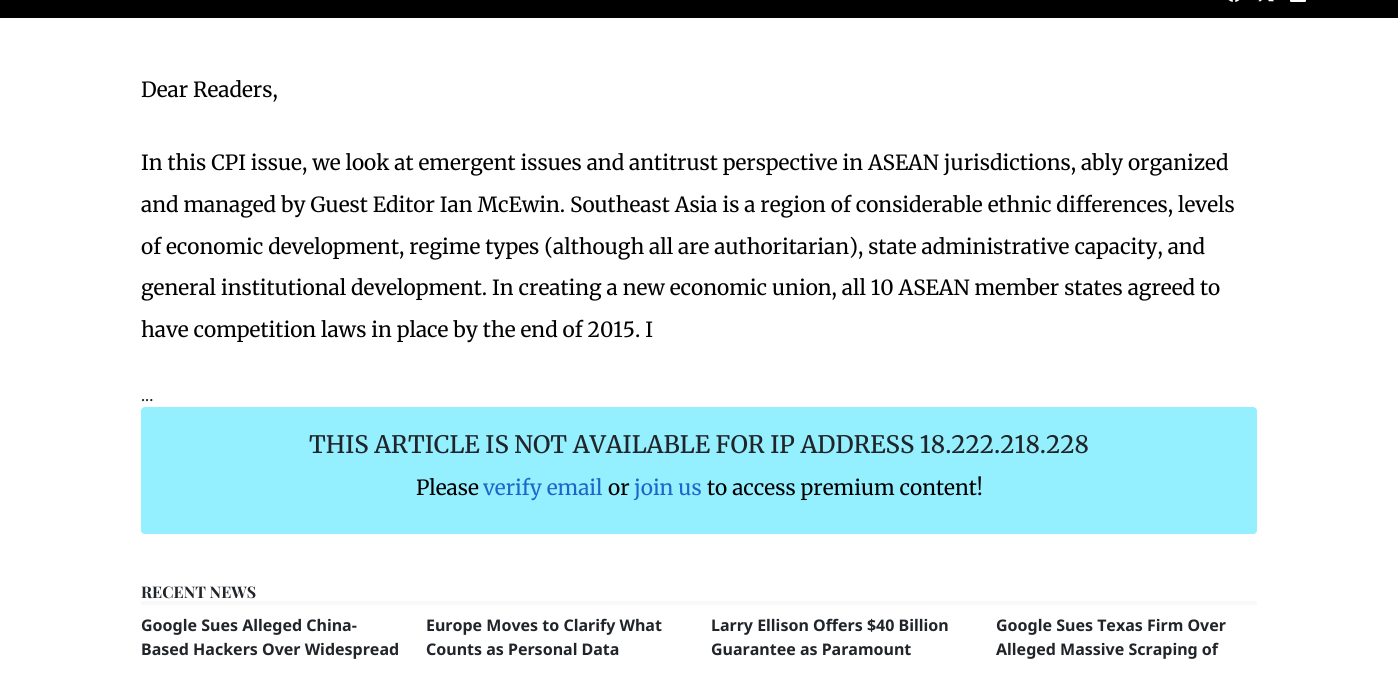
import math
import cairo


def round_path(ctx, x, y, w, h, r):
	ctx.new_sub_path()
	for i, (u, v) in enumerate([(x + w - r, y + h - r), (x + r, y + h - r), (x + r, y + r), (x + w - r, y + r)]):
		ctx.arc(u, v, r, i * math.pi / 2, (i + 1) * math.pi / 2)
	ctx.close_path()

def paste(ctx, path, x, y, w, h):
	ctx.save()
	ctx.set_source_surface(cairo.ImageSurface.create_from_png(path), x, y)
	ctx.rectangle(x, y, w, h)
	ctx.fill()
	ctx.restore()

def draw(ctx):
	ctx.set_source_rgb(1, 1, 1)
	ctx.paint()
	ctx.set_source_rgb(0, 0, 0)
	ctx.rectangle(0, 0, 1398, 18)
	ctx.fill()
	paste(ctx, 'media/1.png', 1228, 0, 12, 2)
	paste(ctx, 'media/2.png', 1258, 0, 16, 2)
	paste(ctx, 'media/3.png', 1290, 0, 16, 2)
	ctx.select_font_face('Merriweather')
	ctx.set_font_size(20.8)
	for x, y, s in [
		(141, 97, 'Dear Readers,'),
		(141, 170, 'In this CPI issue, we look at emergent issues and antitrust perspective in ASEAN jurisdictions, ably organized'),
		(141, 212, 'and managed by Guest Editor Ian McEwin. Southeast Asia is a region of considerable ethnic differences, levels'),
		(141, 254, 'of economic development, regime types (although all are authoritarian), state administrative capacity, and'),
		(141, 295, 'general institutional development. In creating a new economic union, all 10 ASEAN member states agreed to'),
		(141, 337, 'have competition laws in place by the end of 2015. I'),
	]:
		ctx.move_to(x, y)
		ctx.show_text(s)
	ctx.set_font_size(16)
	ctx.set_source_rgb(0.129, 0.145, 0.161)
	ctx.move_to(141, 401)
	ctx.show_text('...')
	ctx.set_source_rgb(0.58, 0.937, 1)
	round_path(ctx, 141, 407, 1116, 127, 4)
	ctx.fill()
	ctx.select_font_face('Merriweather Medium')
	ctx.set_font_size(24)
	ctx.set_source_rgb(0.129, 0.145, 0.161)
	ctx.move_to(309, 453)
	ctx.show_text('THIS ARTICLE IS NOT AVAILABLE FOR IP ADDRESS 18.222.218.228')
	ctx.select_font_face('Merriweather')
	ctx.set_font_size(20.8)
	ctx.set_source_rgb(0, 0, 0)
	ctx.move_to(416, 495)
	ctx.show_text('Please')
	ctx.set_source_rgb(0.118, 0.396, 0.788)
	ctx.move_to(483, 495)
	ctx.show_text('verify email')
	ctx.set_source_rgb(0, 0, 0)
	ctx.move_to(608, 495)
	ctx.show_text('or')
	ctx.set_source_rgb(0.118, 0.396, 0.788)
	ctx.move_to(634, 495)
	ctx.show_text('join us')
	ctx.set_source_rgb(0, 0, 0)
	ctx.move_to(707, 495)
	ctx.show_text('to access premium content!')
	ctx.set_source_rgb(0.973, 0.976, 0.98)
	ctx.rectangle(141, 601, 1116, 4)
	ctx.fill()
	ctx.select_font_face('Playfair Display', cairo.FONT_SLANT_NORMAL, cairo.FONT_WEIGHT_BOLD)
	ctx.set_font_size(16)
	ctx.set_source_rgb(0.129, 0.145, 0.161)
	ctx.move_to(141, 598)
	ctx.show_text('RECENT NEWS')
	ctx.select_font_face('Noto Sans', cairo.FONT_SLANT_NORMAL, cairo.FONT_WEIGHT_BOLD)
	for x, y, s in [
		(141, 631, 'Google Sues Alleged China-'),
		(141, 655, 'Based Hackers Over Widespread'),
		(426, 631, 'Europe Moves to Clarify What'),
		(426, 655, 'Counts as Personal Data'),
		(711, 631, 'Larry Ellison Offers $40 Billion'),
		(711, 655, 'Guarantee as Paramount'),
		(996, 631, 'Google Sues Texas Firm Over'),
		(996, 655, 'Alleged Massive Scraping of'),
	]:
		ctx.move_to(x, y)
		ctx.show_text(s)


surface = cairo.ImageSurface(cairo.FORMAT_RGB24, 1398, 673)
ctx = cairo.Context(surface)
options = cairo.FontOptions()
options.set_hint_metrics(cairo.HINT_METRICS_OFF)
options.set_hint_style(cairo.HINT_STYLE_NONE)
ctx.set_font_options(options)
ctx.set_miter_limit(4)
draw(ctx)
surface.write_to_png('image.png')
